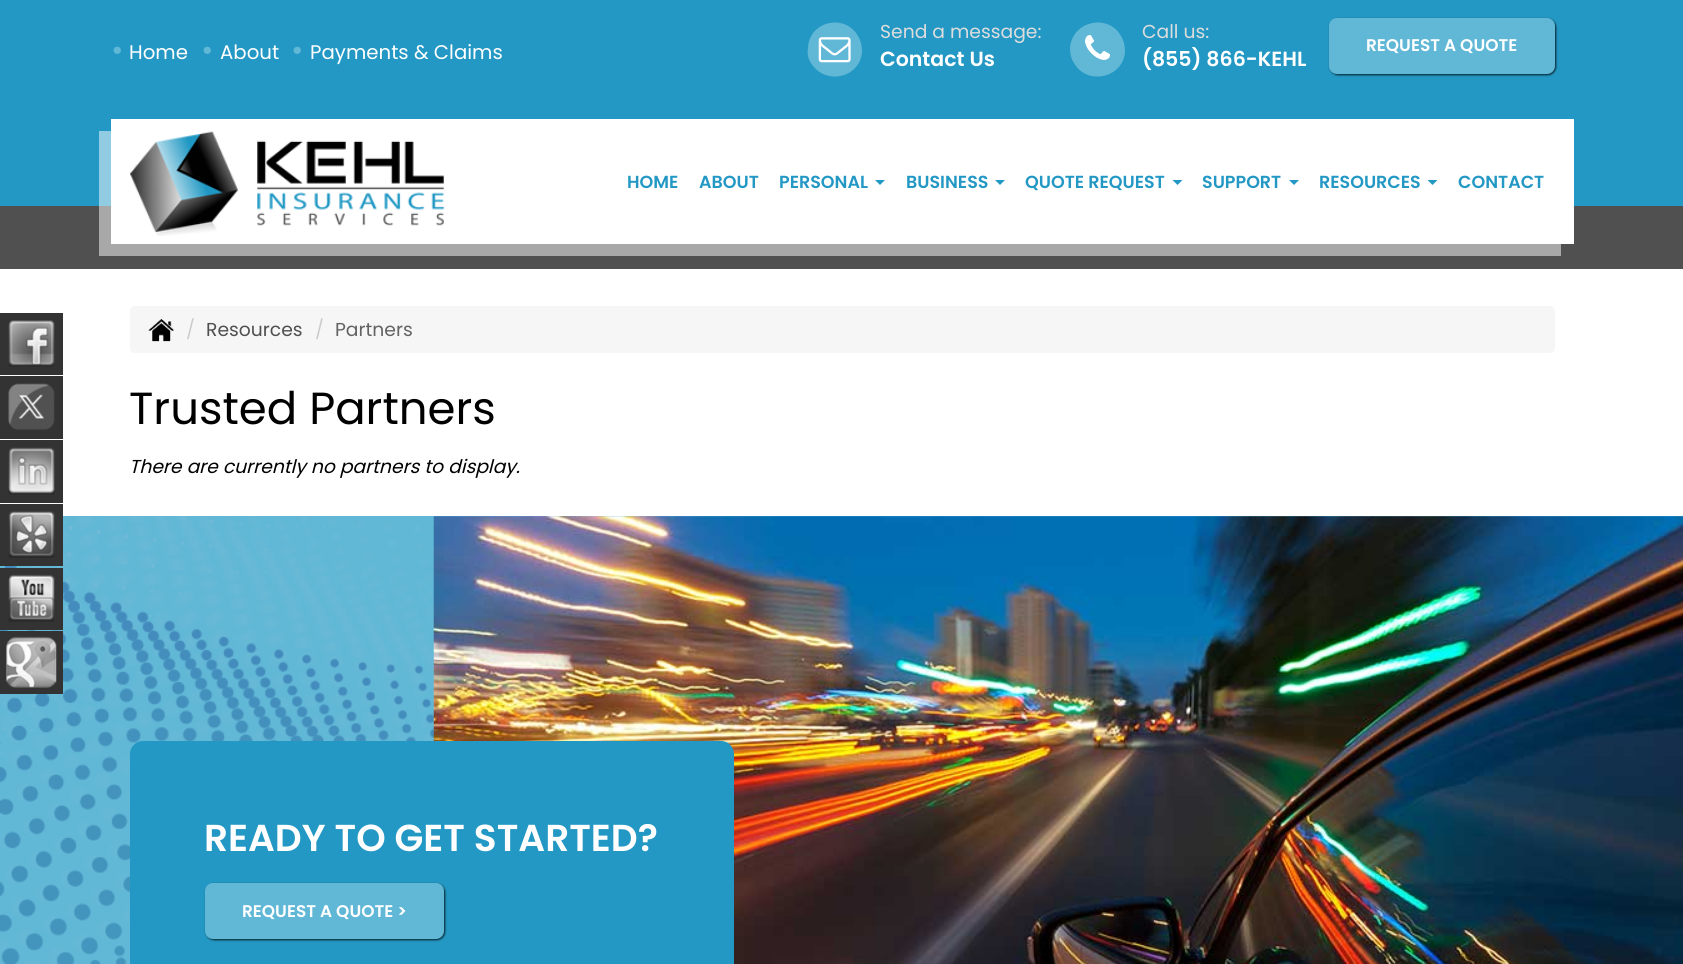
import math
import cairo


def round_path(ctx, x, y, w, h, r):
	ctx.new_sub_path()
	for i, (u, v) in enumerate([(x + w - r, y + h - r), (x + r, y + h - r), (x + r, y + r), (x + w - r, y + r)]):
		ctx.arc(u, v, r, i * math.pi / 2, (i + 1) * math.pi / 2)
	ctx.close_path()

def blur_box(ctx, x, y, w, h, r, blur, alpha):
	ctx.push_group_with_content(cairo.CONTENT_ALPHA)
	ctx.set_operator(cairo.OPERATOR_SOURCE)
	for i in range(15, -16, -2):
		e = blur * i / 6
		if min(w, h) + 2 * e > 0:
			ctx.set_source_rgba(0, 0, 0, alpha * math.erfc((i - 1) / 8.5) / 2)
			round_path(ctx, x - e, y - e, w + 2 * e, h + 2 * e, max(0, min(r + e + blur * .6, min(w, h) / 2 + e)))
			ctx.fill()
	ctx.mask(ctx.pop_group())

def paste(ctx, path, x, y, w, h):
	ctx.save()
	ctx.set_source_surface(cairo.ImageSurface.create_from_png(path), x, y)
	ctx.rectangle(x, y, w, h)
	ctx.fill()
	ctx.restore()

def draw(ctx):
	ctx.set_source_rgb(0.314, 0.314, 0.314)
	ctx.paint()
	ctx.set_source_rgb(0.137, 0.596, 0.769)
	ctx.rectangle(0, 0, 1683, 206)
	ctx.fill()
	ctx.select_font_face('Poppins SemiBold')
	ctx.set_font_size(26)
	ctx.set_source_rgb(0.38, 0.722, 0.839)
	ctx.move_to(111, 59)
	ctx.show_text('•')
	ctx.select_font_face('Poppins')
	ctx.set_font_size(19.75)
	ctx.set_source_rgb(1, 1, 1)
	ctx.move_to(129, 59)
	ctx.show_text('Home')
	ctx.select_font_face('Poppins SemiBold')
	ctx.set_font_size(26)
	ctx.set_source_rgb(0.38, 0.722, 0.839)
	ctx.move_to(201, 59)
	ctx.show_text('•')
	ctx.select_font_face('Poppins')
	ctx.set_font_size(19.75)
	ctx.set_source_rgb(1, 1, 1)
	ctx.move_to(220, 59)
	ctx.show_text('About')
	ctx.select_font_face('Poppins SemiBold')
	ctx.set_font_size(26)
	ctx.set_source_rgb(0.38, 0.722, 0.839)
	ctx.move_to(291, 59)
	ctx.show_text('•')
	ctx.select_font_face('Poppins')
	ctx.set_font_size(19.75)
	ctx.set_source_rgb(1, 1, 1)
	ctx.move_to(310, 59)
	ctx.show_text('Payments & Claims')
	ctx.set_source_rgb(0.38, 0.722, 0.839)
	ctx.new_path()
	ctx.move_to(858, 36)
	ctx.curve_to(861, 41, 862, 46, 862, 52)
	ctx.curve_to(860, 78, 825, 86, 811, 63)
	ctx.curve_to(808, 59, 807, 53, 808, 48)
	ctx.curve_to(809, 21, 845, 13, 858, 36)
	ctx.close_path()
	ctx.fill()
	paste(ctx, 'media/1.png', 818, 37, 33, 26)
	ctx.set_font_size(18.75)
	ctx.set_source_rgb(0.867, 0.867, 0.867)
	ctx.move_to(880, 38)
	ctx.show_text('Send a message:')
	ctx.select_font_face('Poppins SemiBold')
	ctx.set_font_size(20.5)
	ctx.set_source_rgb(1, 1, 1)
	ctx.move_to(880, 66)
	ctx.show_text('Contact Us')
	ctx.set_source_rgb(0.38, 0.722, 0.839)
	ctx.new_path()
	ctx.move_to(1121, 36)
	ctx.curve_to(1124, 41, 1125, 46, 1125, 52)
	ctx.curve_to(1123, 78, 1087, 86, 1074, 63)
	ctx.curve_to(1071, 59, 1070, 53, 1070, 48)
	ctx.curve_to(1072, 21, 1108, 13, 1121, 36)
	ctx.close_path()
	ctx.fill()
	paste(ctx, 'media/2.png', 1085, 35, 25, 25)
	ctx.select_font_face('Poppins')
	ctx.set_font_size(18.75)
	ctx.set_source_rgb(0.867, 0.867, 0.867)
	ctx.move_to(1142, 38)
	ctx.show_text('Call us:')
	ctx.select_font_face('Poppins SemiBold')
	ctx.set_font_size(20.5)
	ctx.set_source_rgb(1, 1, 1)
	ctx.move_to(1142, 66)
	ctx.show_text('(855) 866-KEHL')
	ctx.set_source_rgb(0, 0, 0)
	blur_box(ctx, 1330, 19, 226, 56, 8, 1, 0.8)
	ctx.set_source_rgb(0.38, 0.722, 0.839)
	round_path(ctx, 1329, 18, 226, 56, 8)
	ctx.fill()
	ctx.set_font_size(16.9)
	ctx.set_source_rgb(1, 1, 1)
	ctx.move_to(1366, 51)
	ctx.show_text('REQUEST A QUOTE')
	ctx.set_source_rgba(1, 1, 1, 0.5)
	ctx.new_path()
	ctx.move_to(99, 131)
	ctx.line_to(99, 256)
	ctx.line_to(1561, 256)
	ctx.line_to(1561, 244)
	ctx.line_to(111, 244)
	ctx.line_to(111, 131)
	ctx.close_path()
	ctx.fill()
	ctx.set_source_rgb(1, 1, 1)
	ctx.rectangle(111, 119, 1463, 125)
	ctx.fill()
	paste(ctx, 'media/3.png', 130, 131, 314, 105)
	ctx.set_font_size(17.5)
	ctx.set_source_rgb(0.137, 0.596, 0.769)
	for x, y, s in [
		(627, 188, 'HOME'),
		(699, 188, 'ABOUT'),
		(779, 188, 'PERSONAL'),
	]:
		ctx.move_to(x, y)
		ctx.show_text(s)
	ctx.new_path()
	ctx.move_to(875, 180)
	ctx.line_to(885, 180)
	ctx.line_to(880, 185)
	ctx.close_path()
	ctx.fill()
	ctx.move_to(906, 188)
	ctx.show_text('BUSINESS')
	ctx.new_path()
	ctx.move_to(995, 180)
	ctx.line_to(1005, 180)
	ctx.line_to(1000, 185)
	ctx.close_path()
	ctx.fill()
	ctx.move_to(1025, 188)
	ctx.show_text('QUOTE REQUEST')
	ctx.new_path()
	ctx.move_to(1172.5, 180)
	ctx.line_to(1182.5, 180)
	ctx.line_to(1177.5, 185)
	ctx.close_path()
	ctx.fill()
	ctx.move_to(1202, 188)
	ctx.show_text('SUPPORT')
	ctx.new_path()
	ctx.move_to(1289, 180)
	ctx.line_to(1299, 180)
	ctx.line_to(1294, 185)
	ctx.close_path()
	ctx.fill()
	ctx.move_to(1319, 188)
	ctx.show_text('RESOURCES')
	ctx.new_path()
	ctx.move_to(1427.5, 180)
	ctx.line_to(1437.5, 180)
	ctx.line_to(1432.5, 185)
	ctx.close_path()
	ctx.fill()
	ctx.move_to(1458, 188)
	ctx.show_text('CONTACT')
	ctx.set_source_rgb(1, 1, 1)
	ctx.rectangle(0, 269, 1683, 247)
	ctx.fill()
	ctx.set_source_rgb(0.2, 0.2, 0.2)
	ctx.rectangle(0, 313, 63, 62)
	ctx.fill()
	paste(ctx, 'media/4.png', 8, 320, 47, 47)
	ctx.rectangle(0, 376, 63, 63)
	ctx.fill()
	paste(ctx, 'media/5.png', 8, 383, 47, 47)
	ctx.rectangle(0, 440, 63, 63)
	ctx.fill()
	paste(ctx, 'media/6.png', 8, 447, 47, 48)
	ctx.set_source_rgb(0.38, 0.722, 0.839)
	ctx.rectangle(0, 516, 1683, 448)
	ctx.fill()
	paste(ctx, 'media/11.png', 0, 516, 873, 448)
	ctx.set_source_rgb(0.2, 0.2, 0.2)
	ctx.rectangle(0, 504, 63, 62)
	ctx.fill()
	paste(ctx, 'media/7.png', 8, 511, 47, 47)
	ctx.rectangle(0, 568, 63, 62)
	ctx.fill()
	paste(ctx, 'media/8.png', 8, 574, 47, 48)
	ctx.rectangle(0, 631, 63, 63)
	ctx.fill()
	paste(ctx, 'media/9.png', 6, 636, 51, 52)
	ctx.set_source_rgb(0.961, 0.961, 0.961)
	round_path(ctx, 130, 306, 1425, 47, 5)
	ctx.fill()
	paste(ctx, 'media/10.png', 148, 319, 26, 23)
	ctx.select_font_face('Poppins')
	ctx.set_font_size(18.75)
	ctx.set_source_rgb(0.8, 0.8, 0.8)
	ctx.move_to(186, 336)
	ctx.show_text('/')
	ctx.set_source_rgb(0.314, 0.314, 0.314)
	ctx.move_to(206, 336)
	ctx.show_text('Resources')
	ctx.set_source_rgb(0.8, 0.8, 0.8)
	ctx.move_to(315, 336)
	ctx.show_text('/')
	ctx.set_source_rgb(0.388, 0.388, 0.388)
	ctx.move_to(335, 336)
	ctx.show_text('Partners')
	ctx.set_font_size(45)
	ctx.set_source_rgb(0, 0, 0)
	ctx.move_to(129, 424)
	ctx.show_text('Trusted Partners')
	ctx.select_font_face('Poppins', cairo.FONT_SLANT_ITALIC)
	ctx.set_font_size(18.75)
	ctx.move_to(129, 473)
	ctx.show_text('There are currently no partners to display.')
	paste(ctx, 'media/12.png', 433, 516, 1250, 448)
	ctx.set_source_rgb(0.137, 0.596, 0.769)
	round_path(ctx, 130, 741, 604, 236, 13)
	ctx.fill()
	ctx.select_font_face('Poppins SemiBold')
	ctx.set_font_size(37.5)
	ctx.set_source_rgb(1, 1, 1)
	ctx.move_to(204, 851)
	ctx.show_text('READY TO GET STARTED?')
	ctx.set_source_rgb(0, 0, 0)
	blur_box(ctx, 206, 884, 239, 56, 8, 1, 0.8)
	ctx.set_source_rgb(0.38, 0.722, 0.839)
	round_path(ctx, 205, 883, 239, 56, 8)
	ctx.fill()
	ctx.set_font_size(16.9)
	ctx.set_source_rgb(1, 1, 1)
	ctx.move_to(242, 917)
	ctx.show_text('REQUEST A QUOTE >')


surface = cairo.ImageSurface(cairo.FORMAT_RGB24, 1683, 964)
ctx = cairo.Context(surface)
options = cairo.FontOptions()
options.set_hint_metrics(cairo.HINT_METRICS_OFF)
options.set_hint_style(cairo.HINT_STYLE_NONE)
ctx.set_font_options(options)
ctx.set_miter_limit(4)
draw(ctx)
surface.write_to_png('image.png')
